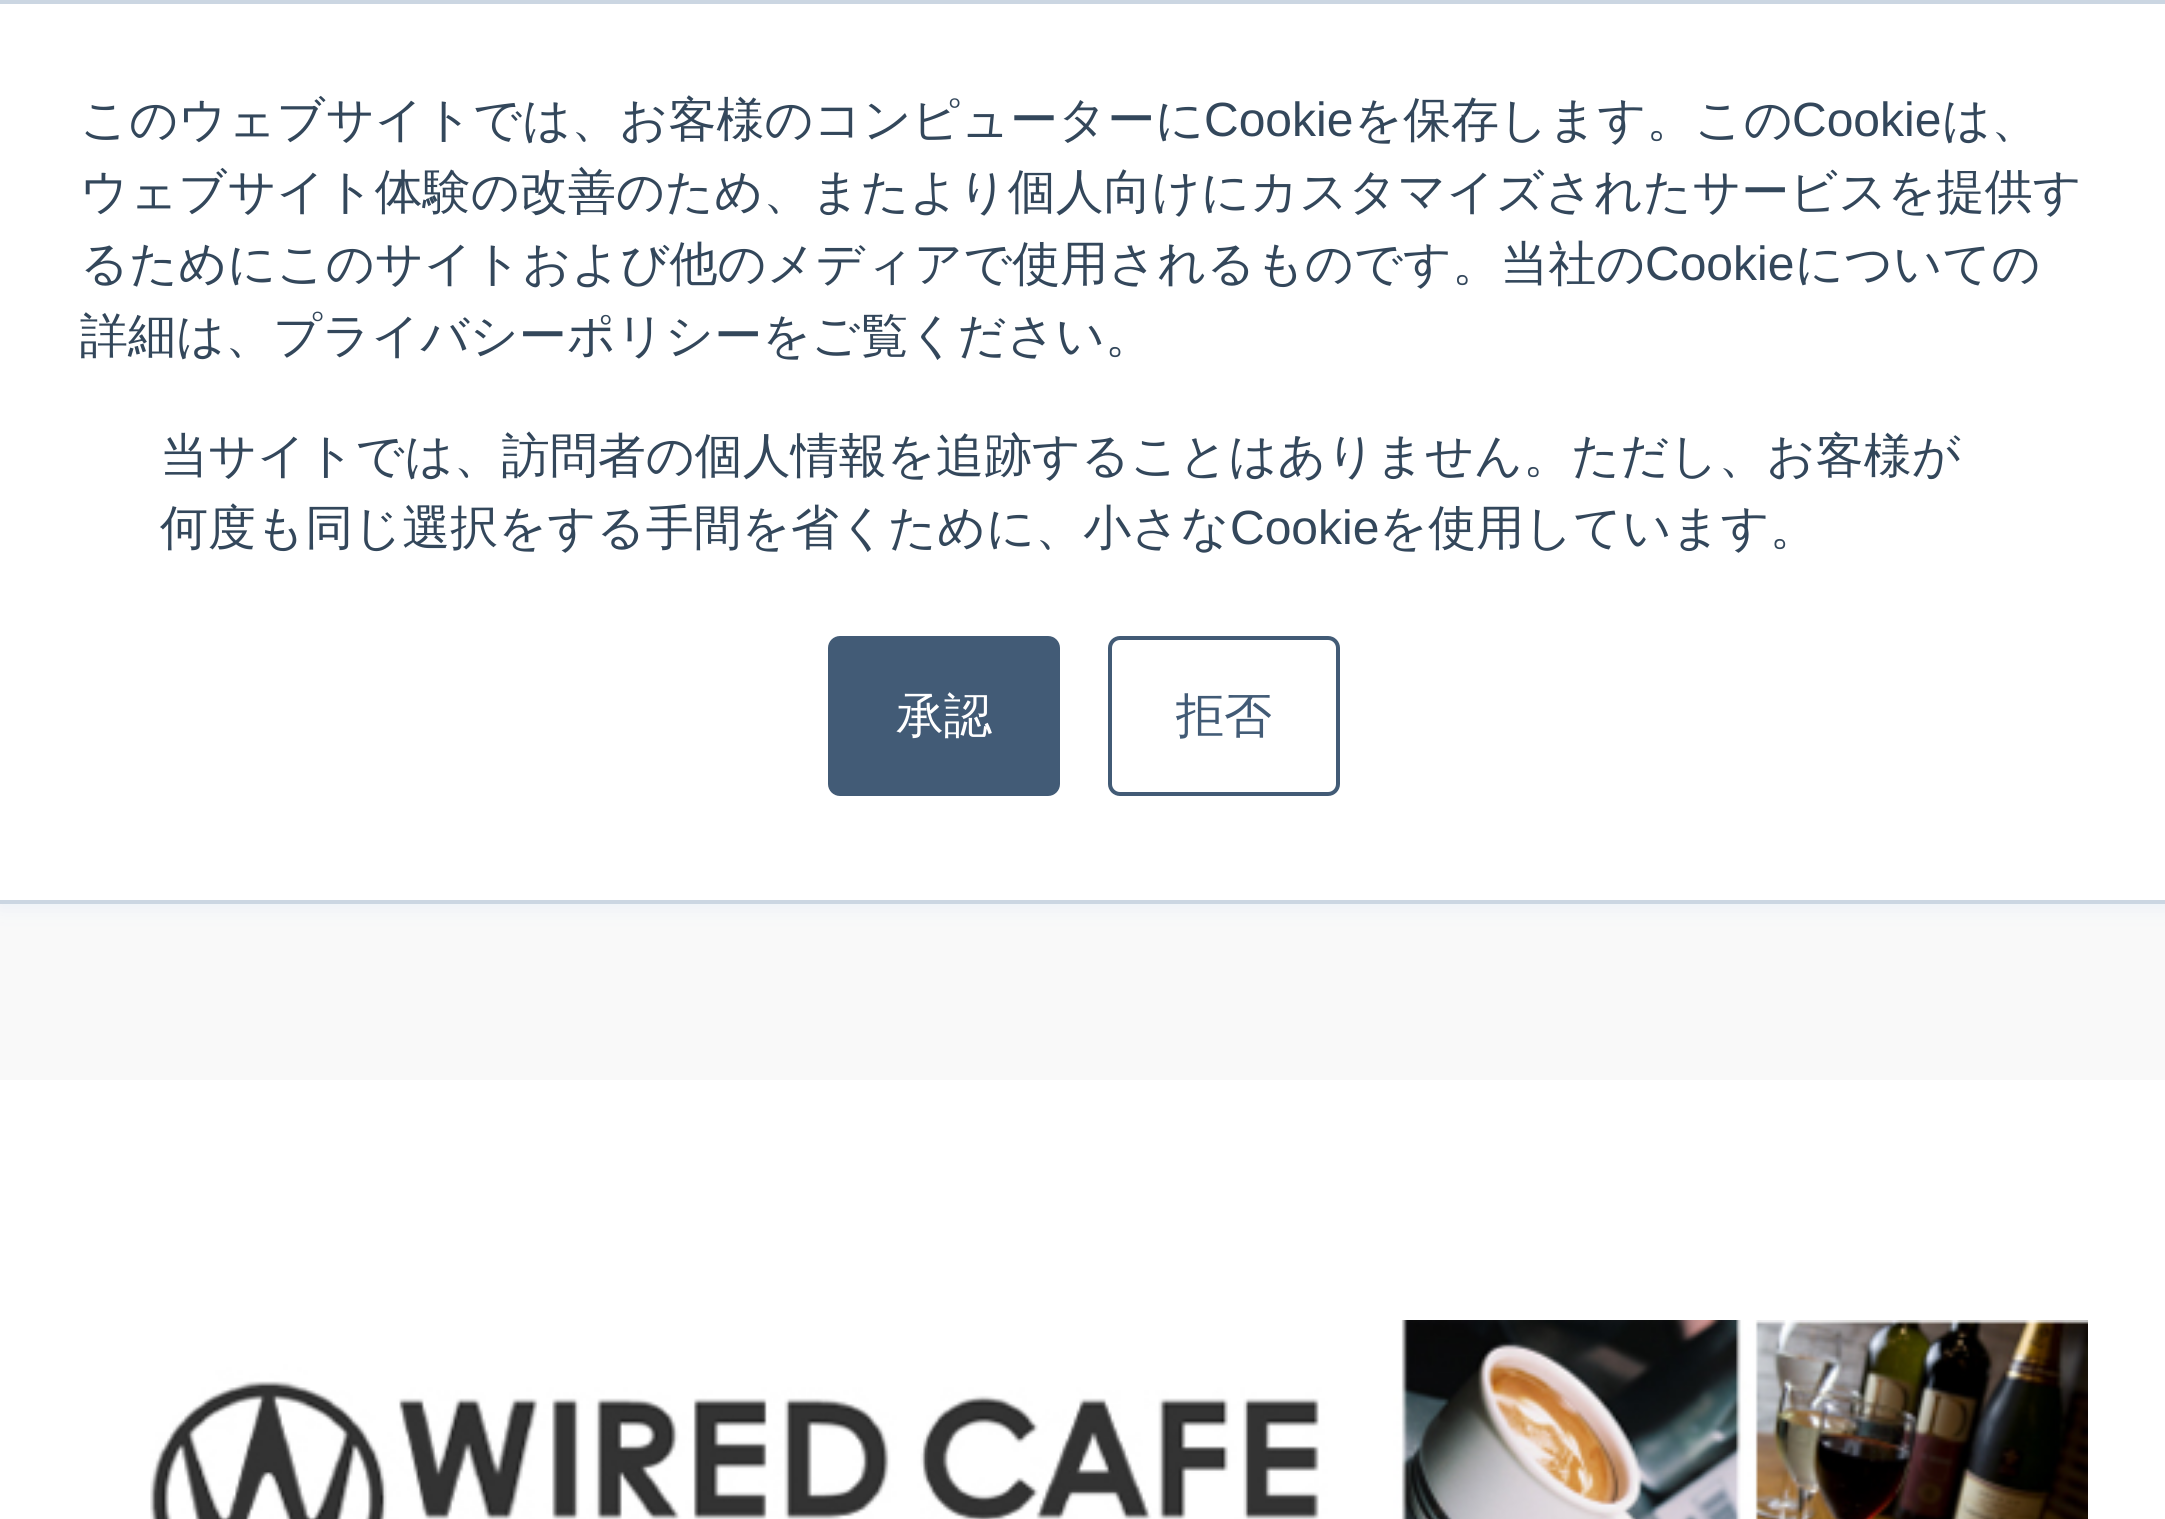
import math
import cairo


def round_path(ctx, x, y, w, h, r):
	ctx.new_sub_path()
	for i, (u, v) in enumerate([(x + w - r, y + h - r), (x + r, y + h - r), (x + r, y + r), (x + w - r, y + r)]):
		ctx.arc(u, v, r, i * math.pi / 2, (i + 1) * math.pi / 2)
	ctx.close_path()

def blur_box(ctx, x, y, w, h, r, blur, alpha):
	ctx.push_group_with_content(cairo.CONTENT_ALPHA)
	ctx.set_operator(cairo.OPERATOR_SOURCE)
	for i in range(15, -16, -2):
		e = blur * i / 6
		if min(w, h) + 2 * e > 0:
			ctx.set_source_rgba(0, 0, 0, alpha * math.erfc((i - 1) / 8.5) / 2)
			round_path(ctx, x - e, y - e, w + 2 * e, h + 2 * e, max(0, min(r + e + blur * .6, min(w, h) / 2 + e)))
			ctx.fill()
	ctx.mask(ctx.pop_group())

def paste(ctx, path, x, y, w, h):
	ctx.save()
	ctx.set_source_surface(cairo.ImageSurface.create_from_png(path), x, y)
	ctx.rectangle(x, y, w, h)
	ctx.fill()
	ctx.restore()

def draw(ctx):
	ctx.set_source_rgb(1, 1, 1)
	ctx.paint()
	ctx.set_source_rgb(0.973, 0.973, 0.973)
	ctx.rectangle(0, 904, 2165, 176)
	ctx.fill()
	ctx.set_source_rgb(0.918, 0.941, 0.965)
	blur_box(ctx, 0, 4, 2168, 904, 0, 10, 1)
	ctx.set_source_rgb(1, 1, 1)
	ctx.rectangle(0, 4, 2165, 896)
	ctx.fill()
	ctx.set_source_rgb(0.796, 0.839, 0.886)
	ctx.rectangle(0, 0, 2165, 4)
	ctx.rectangle(0, 900, 2165, 4)
	ctx.fill()
	ctx.select_font_face('WenQuanYi Zen Hei Medium')
	ctx.set_font_size(48)
	ctx.set_source_rgb(0.2, 0.278, 0.357)
	ctx.move_to(80, 136)
	ctx.show_text('このウェブサイトでは、お客様のコンピューターに')
	ctx.select_font_face('Liberation Sans')
	ctx.move_to(1204, 136)
	ctx.show_text('Cookie')
	ctx.select_font_face('WenQuanYi Zen Hei Medium')
	ctx.move_to(1354, 136)
	ctx.show_text('を保存します。この')
	ctx.select_font_face('Liberation Sans')
	ctx.move_to(1792, 136)
	ctx.show_text('Cookie')
	ctx.select_font_face('WenQuanYi Zen Hei Medium')
	for x, y, s in [
		(1942, 136, 'は、'),
		(80, 208, 'ウェブサイト体験の改善のため、またより個人向けにカスタマイズされたサービスを提供す'),
		(80, 280, 'るためにこのサイトおよび他のメディアで使用されるものです。当社の'),
	]:
		ctx.move_to(x, y)
		ctx.show_text(s)
	ctx.select_font_face('Liberation Sans')
	ctx.move_to(1645, 280)
	ctx.show_text('Cookie')
	ctx.select_font_face('WenQuanYi Zen Hei Medium')
	for x, y, s in [
		(1795, 280, 'についての'),
		(80, 352, '詳細は、プライバシーポリシーをご覧ください。'),
		(160, 472, '当サイトでは、訪問者の個人情報を追跡することはありません。ただし、お客様が'),
		(160, 544, '何度も同じ選択をする手間を省くために、小さな'),
	]:
		ctx.move_to(x, y)
		ctx.show_text(s)
	ctx.select_font_face('Liberation Sans')
	ctx.move_to(1230, 544)
	ctx.show_text('Cookie')
	ctx.select_font_face('WenQuanYi Zen Hei Medium')
	ctx.move_to(1379, 544)
	ctx.show_text('を使用しています。')
	ctx.set_source_rgb(0.259, 0.357, 0.463)
	round_path(ctx, 830, 638, 228, 156, 10)
	ctx.fill_preserve()
	ctx.set_line_width(4)
	ctx.stroke()
	ctx.set_source_rgb(1, 1, 1)
	ctx.move_to(896, 732)
	ctx.show_text('承認')
	round_path(ctx, 1110, 638, 228, 156, 10)
	ctx.set_source_rgb(0.259, 0.357, 0.463)
	ctx.stroke()
	ctx.move_to(1176, 732)
	ctx.show_text('拒否')
	paste(ctx, 'media/1.png', 150, 1320, 1938, 199)


surface = cairo.ImageSurface(cairo.FORMAT_RGB24, 2165, 1519)
ctx = cairo.Context(surface)
options = cairo.FontOptions()
options.set_hint_metrics(cairo.HINT_METRICS_OFF)
options.set_hint_style(cairo.HINT_STYLE_NONE)
ctx.set_font_options(options)
ctx.set_miter_limit(4)
draw(ctx)
surface.write_to_png('image.png')
